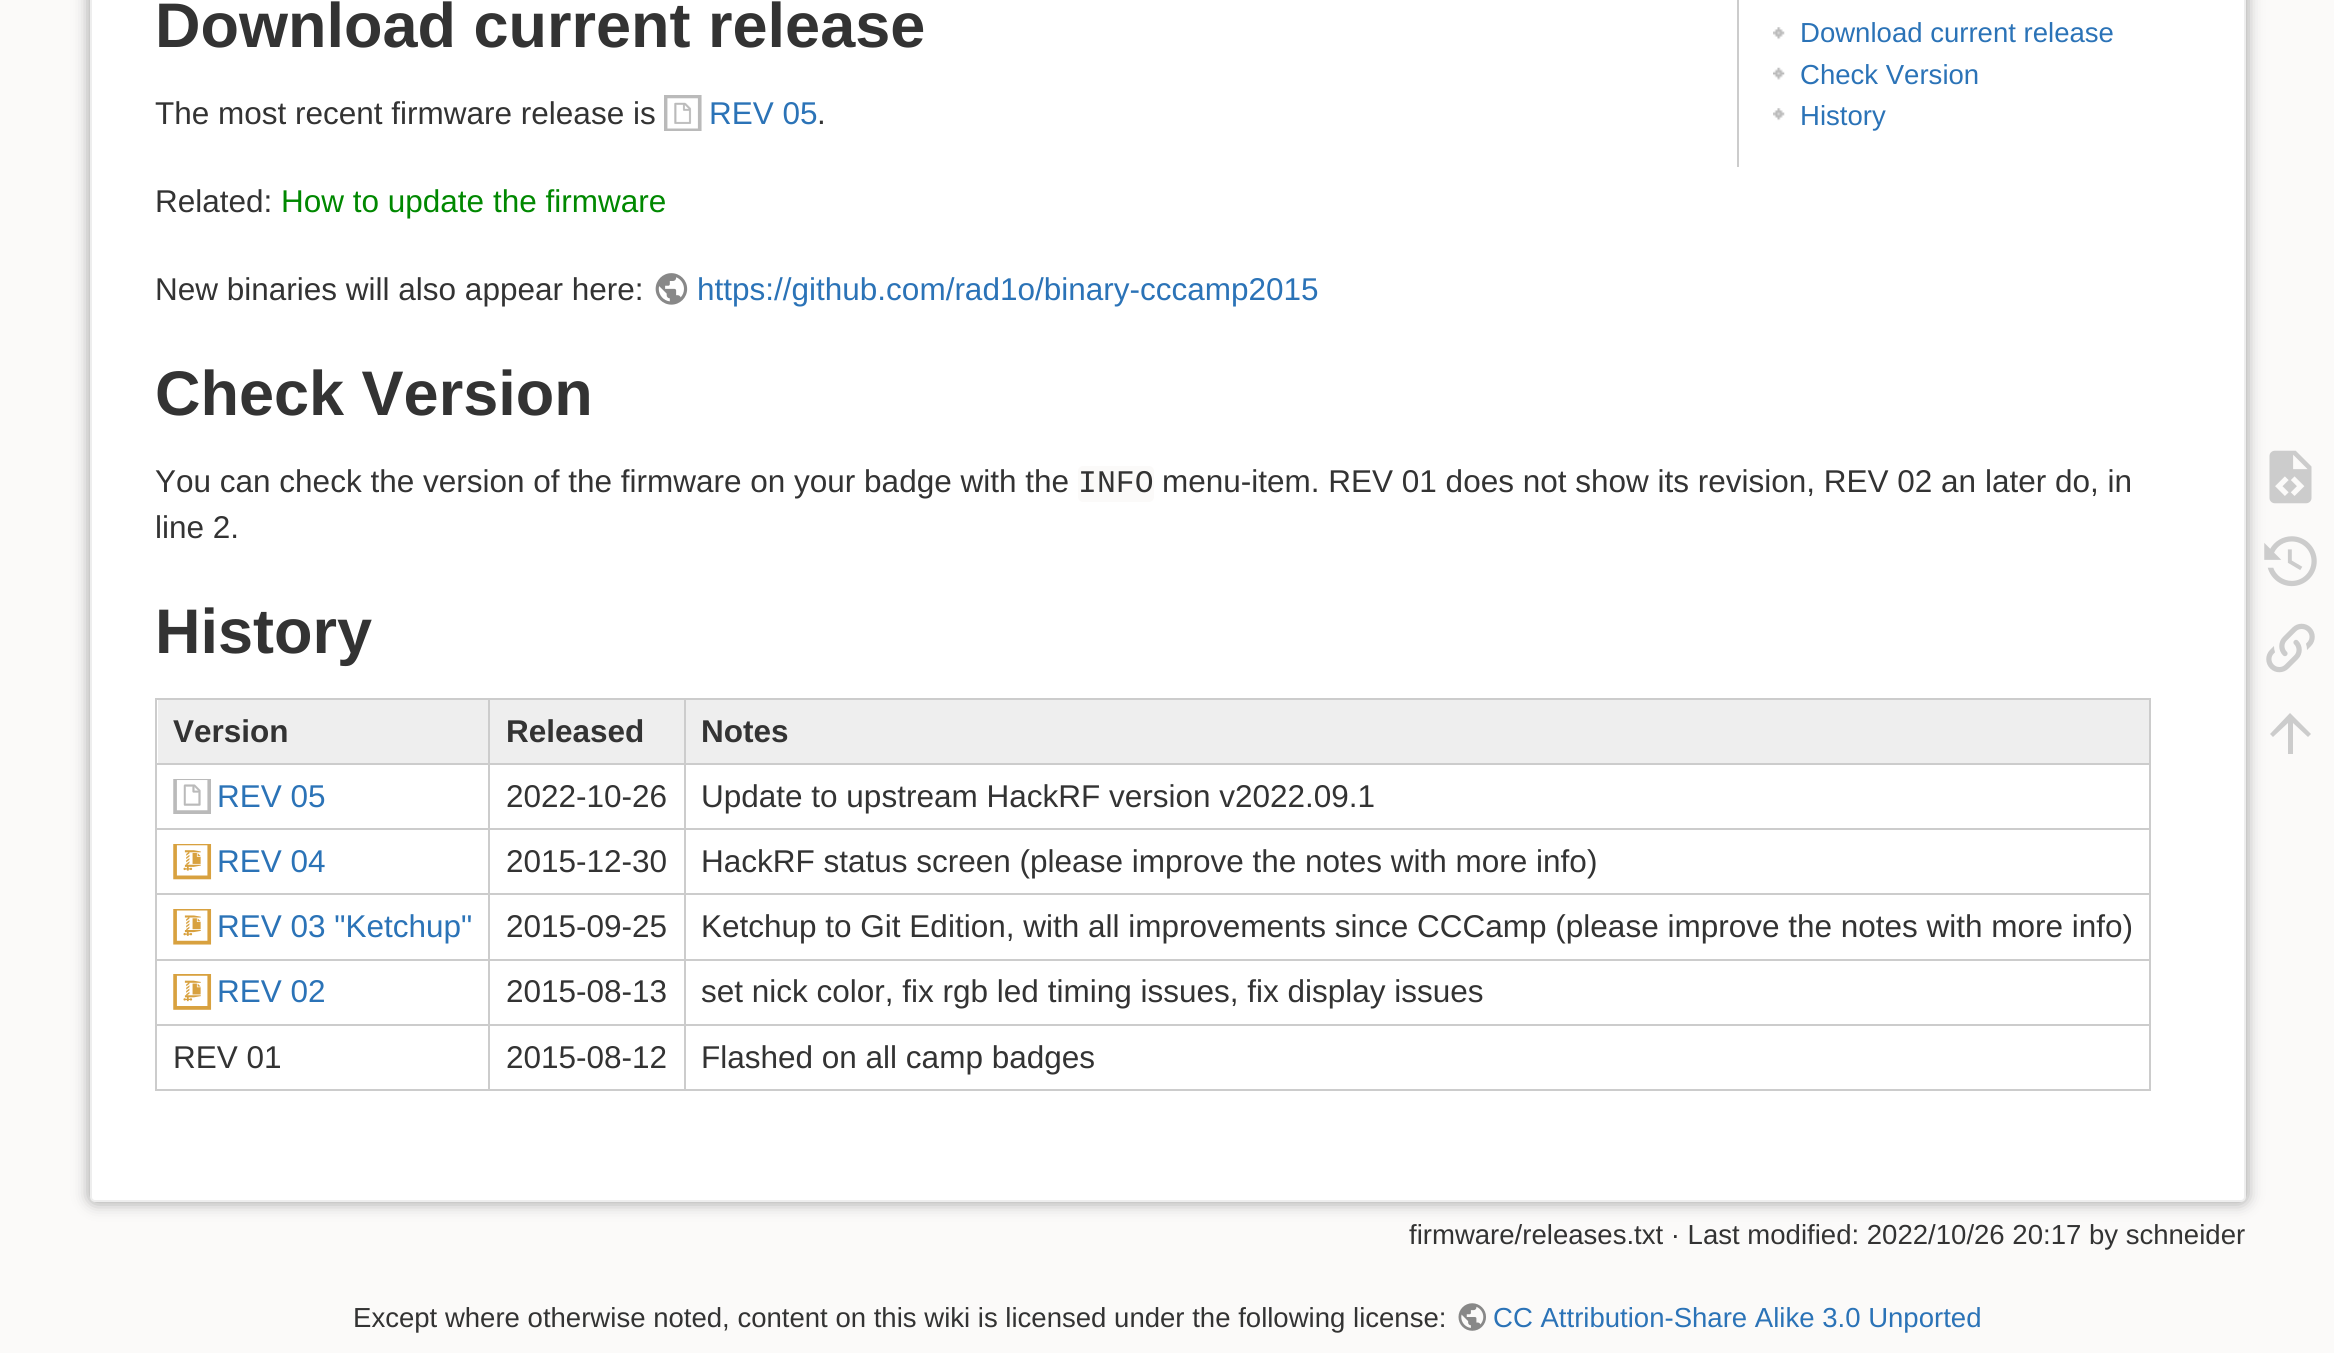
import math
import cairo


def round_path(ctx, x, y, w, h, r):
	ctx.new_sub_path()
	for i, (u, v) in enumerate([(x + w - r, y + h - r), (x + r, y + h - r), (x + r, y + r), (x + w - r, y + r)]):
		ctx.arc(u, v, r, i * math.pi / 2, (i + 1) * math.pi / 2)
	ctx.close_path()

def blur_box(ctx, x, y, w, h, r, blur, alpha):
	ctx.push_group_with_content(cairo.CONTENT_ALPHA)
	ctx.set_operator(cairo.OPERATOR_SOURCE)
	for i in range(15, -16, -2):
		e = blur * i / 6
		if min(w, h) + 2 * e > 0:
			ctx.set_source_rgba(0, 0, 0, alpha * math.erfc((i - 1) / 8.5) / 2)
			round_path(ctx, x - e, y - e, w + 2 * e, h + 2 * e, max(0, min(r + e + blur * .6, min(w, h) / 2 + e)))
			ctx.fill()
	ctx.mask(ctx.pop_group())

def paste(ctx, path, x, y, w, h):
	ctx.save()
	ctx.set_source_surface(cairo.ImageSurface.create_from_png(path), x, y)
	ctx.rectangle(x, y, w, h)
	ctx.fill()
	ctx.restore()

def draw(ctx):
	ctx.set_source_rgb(0.984, 0.98, 0.976)
	ctx.paint()
	ctx.set_source_rgb(0.6, 0.6, 0.6)
	blur_box(ctx, 90, -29, 2156, 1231, 5, 8, 1)
	ctx.set_source_rgb(1, 1, 1)
	round_path(ctx, 91, -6, 2154, 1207, 4)
	ctx.fill_preserve()
	ctx.set_source_rgb(0.933, 0.933, 0.933)
	ctx.stroke()
	ctx.select_font_face('Liberation Sans', cairo.FONT_SLANT_NORMAL, cairo.FONT_WEIGHT_BOLD)
	ctx.set_font_size(63)
	ctx.set_source_rgb(0.2, 0.2, 0.2)
	ctx.move_to(155, 47)
	ctx.show_text('Download current release')
	ctx.set_source_rgb(0.8, 0.8, 0.8)
	ctx.rectangle(1737, 0, 2, 167)
	ctx.fill()
	paste(ctx, 'media/1.png', 1773, 27, 12, 13)
	ctx.select_font_face('Liberation Sans')
	ctx.set_font_size(27.55)
	ctx.set_source_rgb(0.169, 0.451, 0.718)
	ctx.move_to(1800, 42)
	ctx.show_text('Download current release')
	paste(ctx, 'media/2.png', 1773, 67, 12, 13)
	ctx.move_to(1800, 84)
	ctx.show_text('Check Version')
	paste(ctx, 'media/1.png', 1773, 108, 12, 13)
	ctx.move_to(1800, 125)
	ctx.show_text('History')
	ctx.set_font_size(31.5)
	ctx.set_source_rgb(0.2, 0.2, 0.2)
	ctx.move_to(155, 124)
	ctx.show_text('The most recent firmware release is')
	paste(ctx, 'media/3.png', 664, 95, 38, 36)
	ctx.set_source_rgb(0.169, 0.451, 0.718)
	ctx.move_to(709, 124)
	ctx.show_text('REV 05')
	ctx.set_source_rgb(0.2, 0.2, 0.2)
	ctx.move_to(817, 124)
	ctx.show_text('.')
	ctx.move_to(155, 212)
	ctx.show_text('Related:')
	ctx.set_source_rgb(0, 0.533, 0)
	ctx.move_to(281, 212)
	ctx.show_text('How to update the firmware')
	ctx.set_source_rgb(0.2, 0.2, 0.2)
	ctx.move_to(155, 300)
	ctx.show_text('New binaries will also appear here:')
	paste(ctx, 'media/4.png', 655, 273, 33, 32)
	ctx.set_source_rgb(0.169, 0.451, 0.718)
	ctx.move_to(697, 300)
	ctx.show_text('https://github.com/rad1o/binary-cccamp2015')
	ctx.select_font_face('Liberation Sans', cairo.FONT_SLANT_NORMAL, cairo.FONT_WEIGHT_BOLD)
	ctx.set_font_size(63)
	ctx.set_source_rgb(0.2, 0.2, 0.2)
	ctx.move_to(155, 415)
	ctx.show_text('Check Version')
	ctx.select_font_face('Liberation Sans')
	ctx.set_font_size(31.5)
	ctx.move_to(155, 492)
	ctx.show_text('You can check the version of the firmware on your badge with the')
	ctx.set_source_rgb(0.984, 0.98, 0.976)
	round_path(ctx, 1078, 466, 76, 36, 5)
	ctx.fill()
	ctx.select_font_face('Liberation Mono')
	ctx.set_source_rgb(0.2, 0.2, 0.2)
	ctx.move_to(1078, 492)
	ctx.show_text('INFO')
	ctx.select_font_face('Liberation Sans')
	ctx.move_to(1162, 492)
	ctx.show_text('menu-item. REV 01 does not show its revision, REV 02 an later do, in')
	ctx.move_to(155, 538)
	ctx.show_text('line 2.')
	ctx.select_font_face('Liberation Sans', cairo.FONT_SLANT_NORMAL, cairo.FONT_WEIGHT_BOLD)
	ctx.set_font_size(63)
	ctx.move_to(155, 653)
	ctx.show_text('History')
	ctx.set_source_rgb(0.8, 0.8, 0.8)
	ctx.rectangle(155, 698, 1996, 2)
	ctx.rectangle(2149, 698, 2, 393)
	ctx.rectangle(155, 1089, 1996, 2)
	ctx.rectangle(155, 698, 2, 393)
	ctx.fill()
	ctx.set_source_rgb(0.933, 0.933, 0.933)
	ctx.rectangle(158, 700, 526, 63)
	ctx.fill()
	ctx.set_font_size(31.5)
	ctx.set_source_rgb(0.2, 0.2, 0.2)
	ctx.move_to(173, 742)
	ctx.show_text('Version')
	ctx.set_source_rgb(0.8, 0.8, 0.8)
	ctx.rectangle(684, 763, 1467, 2)
	ctx.rectangle(684, 828, 1467, 2)
	ctx.rectangle(684, 893, 1467, 2)
	ctx.rectangle(684, 959, 1467, 2)
	ctx.rectangle(684, 1024, 1467, 2)
	ctx.rectangle(684, 1024, 2, 67)
	ctx.rectangle(488, 1024, 198, 2)
	ctx.rectangle(684, 959, 2, 67)
	ctx.rectangle(488, 959, 198, 2)
	ctx.rectangle(684, 893, 2, 68)
	ctx.rectangle(488, 893, 198, 2)
	ctx.rectangle(684, 828, 2, 68)
	ctx.rectangle(488, 828, 198, 2)
	ctx.rectangle(684, 763, 2, 67)
	ctx.rectangle(488, 763, 198, 2)
	ctx.rectangle(488, 1024, 2, 67)
	ctx.rectangle(155, 1024, 336, 2)
	ctx.rectangle(488, 959, 2, 67)
	ctx.rectangle(155, 959, 336, 2)
	ctx.rectangle(488, 893, 2, 68)
	ctx.rectangle(155, 893, 336, 2)
	ctx.rectangle(488, 828, 2, 68)
	ctx.rectangle(155, 828, 336, 2)
	ctx.rectangle(488, 763, 2, 67)
	ctx.rectangle(155, 763, 336, 2)
	ctx.rectangle(488, 698, 2, 67)
	ctx.fill()
	ctx.set_source_rgb(0.2, 0.2, 0.2)
	ctx.move_to(506, 742)
	ctx.show_text('Released')
	ctx.set_source_rgb(0.933, 0.933, 0.933)
	ctx.rectangle(686, 700, 1463, 63)
	ctx.fill()
	ctx.set_source_rgb(0.8, 0.8, 0.8)
	ctx.rectangle(684, 698, 2, 67)
	ctx.fill()
	ctx.set_source_rgb(0.2, 0.2, 0.2)
	ctx.move_to(701, 742)
	ctx.show_text('Notes')
	paste(ctx, 'media/5.png', 173, 779, 38, 35)
	ctx.select_font_face('Liberation Sans')
	ctx.set_source_rgb(0.169, 0.451, 0.718)
	ctx.move_to(217, 807)
	ctx.show_text('REV 05')
	ctx.set_source_rgb(0.2, 0.2, 0.2)
	ctx.move_to(506, 807)
	ctx.show_text('2022-10-26')
	ctx.move_to(701, 807)
	ctx.show_text('Update to upstream HackRF version v2022.09.1')
	paste(ctx, 'media/6.png', 173, 844, 39, 36)
	ctx.set_source_rgb(0.169, 0.451, 0.718)
	ctx.move_to(217, 872)
	ctx.show_text('REV 04')
	ctx.set_source_rgb(0.2, 0.2, 0.2)
	ctx.move_to(506, 872)
	ctx.show_text('2015-12-30')
	ctx.move_to(701, 872)
	ctx.show_text('HackRF status screen (please improve the notes with more info)')
	paste(ctx, 'media/7.png', 173, 909, 39, 36)
	ctx.set_source_rgb(0.169, 0.451, 0.718)
	ctx.move_to(217, 937)
	ctx.show_text('REV 03 "Ketchup"')
	ctx.set_source_rgb(0.2, 0.2, 0.2)
	ctx.move_to(506, 937)
	ctx.show_text('2015-09-25')
	ctx.move_to(701, 937)
	ctx.show_text('Ketchup to Git Edition, with all improvements since CCCamp (please improve the notes with more info)')
	paste(ctx, 'media/8.png', 173, 974, 39, 36)
	ctx.set_source_rgb(0.169, 0.451, 0.718)
	ctx.move_to(217, 1002)
	ctx.show_text('REV 02')
	ctx.set_source_rgb(0.2, 0.2, 0.2)
	for x, y, s in [
		(506, 1002, '2015-08-13'),
		(701, 1002, 'set nick color, fix rgb led timing issues, fix display issues'),
		(173, 1068, 'REV 01'),
		(506, 1068, '2015-08-12'),
		(701, 1068, 'Flashed on all camp badges'),
	]:
		ctx.move_to(x, y)
		ctx.show_text(s)
	ctx.set_font_size(27.55)
	ctx.move_to(1409, 1244)
	ctx.show_text('firmware/releases.txt · Last modified: 2022/10/26 20:17 by schneider')
	paste(ctx, 'media/9.png', 2269, 450, 43, 54)
	paste(ctx, 'media/10.png', 2264, 536, 53, 51)
	paste(ctx, 'media/11.png', 2266, 623, 49, 50)
	ctx.set_source_rgb(0.8, 0.8, 0.8)
	ctx.new_path()
	ctx.move_to(2293, 754)
	ctx.line_to(2288, 754)
	ctx.line_to(2288, 723)
	ctx.line_to(2273, 737)
	ctx.line_to(2270, 734)
	ctx.line_to(2290, 713)
	ctx.line_to(2311, 734)
	ctx.line_to(2308, 737)
	ctx.line_to(2293, 723)
	ctx.close_path()
	ctx.fill()
	ctx.set_source_rgb(0.2, 0.2, 0.2)
	ctx.move_to(353, 1327)
	ctx.show_text('Except where otherwise noted, content on this wiki is licensed under the following license:')
	paste(ctx, 'media/12.png', 1458, 1303, 28, 28)
	ctx.set_source_rgb(0.169, 0.451, 0.718)
	ctx.move_to(1493, 1327)
	ctx.show_text('CC Attribution-Share Alike 3.0 Unported')


surface = cairo.ImageSurface(cairo.FORMAT_RGB24, 2334, 1353)
ctx = cairo.Context(surface)
options = cairo.FontOptions()
options.set_hint_metrics(cairo.HINT_METRICS_OFF)
options.set_hint_style(cairo.HINT_STYLE_NONE)
ctx.set_font_options(options)
ctx.set_miter_limit(4)
draw(ctx)
surface.write_to_png('image.png')
